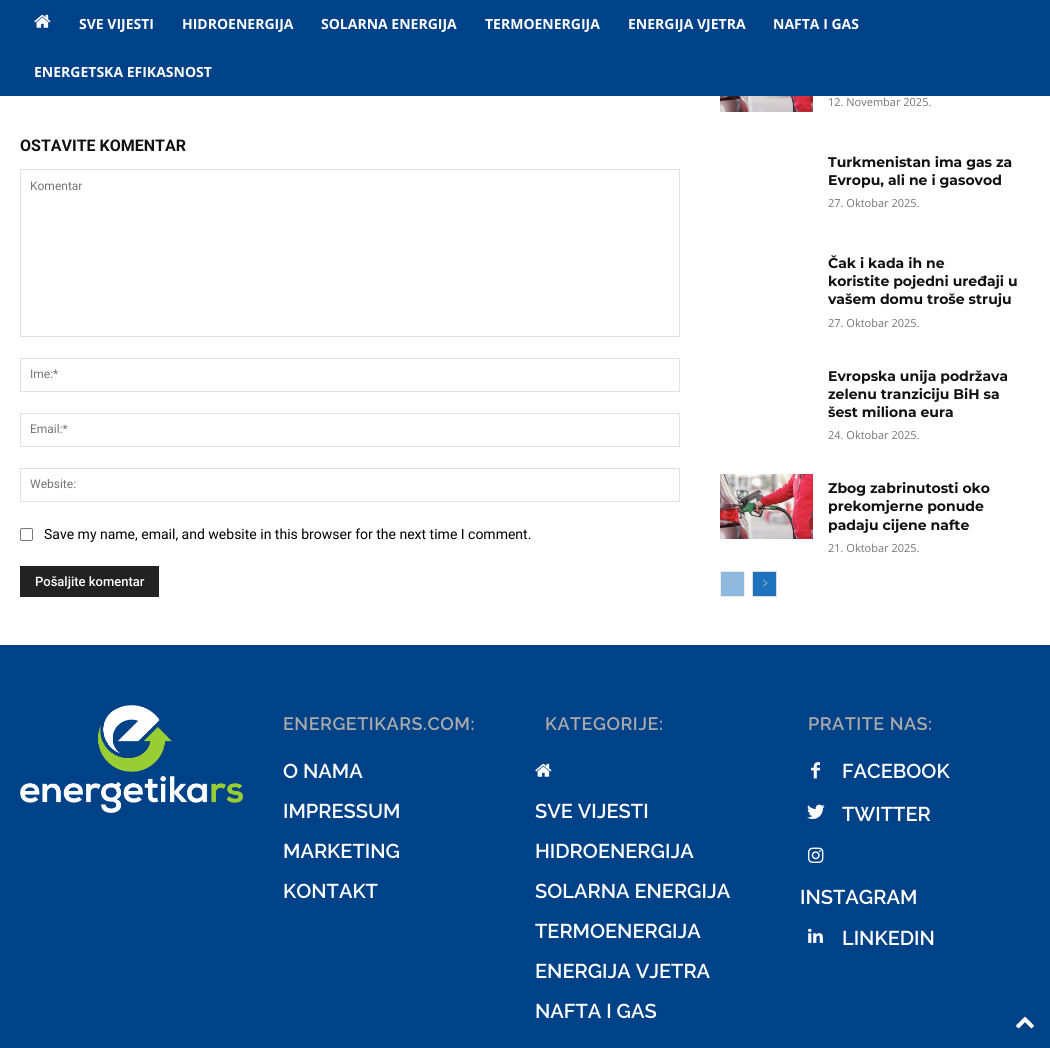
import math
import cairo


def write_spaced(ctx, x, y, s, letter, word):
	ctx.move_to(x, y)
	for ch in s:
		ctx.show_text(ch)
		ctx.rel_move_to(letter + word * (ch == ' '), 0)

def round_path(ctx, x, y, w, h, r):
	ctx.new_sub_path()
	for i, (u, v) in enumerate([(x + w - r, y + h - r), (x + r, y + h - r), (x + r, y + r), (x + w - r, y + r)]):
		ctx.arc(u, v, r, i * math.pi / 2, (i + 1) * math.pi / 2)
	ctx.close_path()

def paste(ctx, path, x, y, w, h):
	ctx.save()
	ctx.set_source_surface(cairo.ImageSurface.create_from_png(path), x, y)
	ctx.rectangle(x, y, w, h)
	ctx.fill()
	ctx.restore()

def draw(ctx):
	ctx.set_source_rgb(1, 1, 1)
	ctx.paint()
	ctx.set_source_rgb(0, 0.259, 0.533)
	ctx.rectangle(0, 0, 1050, 96)
	ctx.fill()
	paste(ctx, 'media/1.png', 34, 14, 17, 14)
	ctx.select_font_face('Open Sans', cairo.FONT_SLANT_NORMAL, cairo.FONT_WEIGHT_BOLD)
	ctx.set_font_size(14)
	ctx.set_source_rgb(1, 1, 1)
	for x, y, s in [
		(79, 29, 'SVE VIJESTI'),
		(182, 29, 'HIDROENERGIJA'),
		(321, 29, 'SOLARNA ENERGIJA'),
		(485, 29, 'TERMOENERGIJA'),
		(628, 29, 'ENERGIJA VJETRA'),
		(773, 29, 'NAFTA I GAS'),
		(34, 77, 'ENERGETSKA EFIKASNOST'),
	]:
		ctx.move_to(x, y)
		ctx.show_text(s)
	ctx.select_font_face('Roboto', cairo.FONT_SLANT_NORMAL, cairo.FONT_WEIGHT_BOLD)
	ctx.set_font_size(16)
	ctx.set_source_rgb(0.067, 0.067, 0.067)
	ctx.move_to(20, 151)
	ctx.show_text('OSTAVITE KOMENTAR')
	ctx.rectangle(20.5, 169.5, 659, 167)
	ctx.set_source_rgb(0.882, 0.882, 0.882)
	ctx.set_line_width(1)
	ctx.stroke()
	ctx.select_font_face('Roboto')
	ctx.set_font_size(12)
	ctx.set_source_rgb(0.459, 0.459, 0.459)
	ctx.move_to(30, 190)
	ctx.show_text('Komentar')
	ctx.rectangle(20.5, 358.5, 659, 33)
	ctx.set_source_rgb(0.882, 0.882, 0.882)
	ctx.stroke()
	ctx.set_source_rgb(0.459, 0.459, 0.459)
	ctx.move_to(30, 378)
	ctx.show_text('Ime:*')
	ctx.rectangle(20.5, 413.5, 659, 33)
	ctx.set_source_rgb(0.882, 0.882, 0.882)
	ctx.stroke()
	ctx.set_source_rgb(0.459, 0.459, 0.459)
	ctx.move_to(30, 433)
	ctx.show_text('Email:*')
	ctx.rectangle(20.5, 468.5, 659, 33)
	ctx.set_source_rgb(0.882, 0.882, 0.882)
	ctx.stroke()
	ctx.set_source_rgb(0.459, 0.459, 0.459)
	ctx.move_to(30, 488)
	ctx.show_text('Website:')
	round_path(ctx, 20.5, 528.5, 12, 12, 1.5)
	ctx.set_source_rgb(0.463, 0.463, 0.463)
	ctx.stroke()
	ctx.set_font_size(14)
	ctx.set_source_rgb(0, 0, 0)
	ctx.move_to(44, 539)
	ctx.show_text('Save my name, email, and website in this browser for the next time I comment.')
	ctx.set_source_rgb(0.133, 0.133, 0.133)
	ctx.rectangle(20, 566, 139, 31)
	ctx.fill()
	ctx.select_font_face('Roboto Medium')
	ctx.set_font_size(13)
	ctx.set_source_rgb(1, 1, 1)
	ctx.move_to(35, 586)
	ctx.show_text('Pošaljite komentar')
	paste(ctx, 'media/2.png', 720, 96, 93, 16)
	ctx.select_font_face('Open Sans')
	ctx.set_font_size(11)
	ctx.set_source_rgb(0.459, 0.459, 0.459)
	ctx.move_to(828, 106)
	ctx.show_text('12. Novembar 2025.')
	ctx.select_font_face('Montserrat', cairo.FONT_SLANT_NORMAL, cairo.FONT_WEIGHT_BOLD)
	ctx.set_font_size(14)
	ctx.set_source_rgb(0.067, 0.067, 0.067)
	ctx.move_to(828, 167)
	ctx.show_text('Turkmenistan ima gas za')
	ctx.move_to(828, 185)
	ctx.show_text('Evropu, ali ne i gasovod')
	ctx.select_font_face('Open Sans')
	ctx.set_font_size(11)
	ctx.set_source_rgb(0.459, 0.459, 0.459)
	ctx.move_to(828, 207)
	ctx.show_text('27. Oktobar 2025.')
	ctx.select_font_face('Montserrat', cairo.FONT_SLANT_NORMAL, cairo.FONT_WEIGHT_BOLD)
	ctx.set_font_size(14)
	ctx.set_source_rgb(0.067, 0.067, 0.067)
	for x, y, s in [
		(828, 268, 'Čak i kada ih ne'),
		(828, 286, 'koristite pojedni uređaji u'),
		(828, 304, 'vašem domu troše struju'),
	]:
		ctx.move_to(x, y)
		ctx.show_text(s)
	ctx.select_font_face('Open Sans')
	ctx.set_font_size(11)
	ctx.set_source_rgb(0.459, 0.459, 0.459)
	ctx.move_to(828, 327)
	ctx.show_text('27. Oktobar 2025.')
	ctx.select_font_face('Montserrat', cairo.FONT_SLANT_NORMAL, cairo.FONT_WEIGHT_BOLD)
	ctx.set_font_size(14)
	ctx.set_source_rgb(0.067, 0.067, 0.067)
	for x, y, s in [
		(828, 381, 'Evropska unija podržava'),
		(828, 399, 'zelenu tranziciju BiH sa'),
		(828, 417, 'šest miliona eura'),
	]:
		ctx.move_to(x, y)
		ctx.show_text(s)
	ctx.select_font_face('Open Sans')
	ctx.set_font_size(11)
	ctx.set_source_rgb(0.459, 0.459, 0.459)
	ctx.move_to(828, 439)
	ctx.show_text('24. Oktobar 2025.')
	paste(ctx, 'media/3.png', 720, 474, 93, 65)
	ctx.select_font_face('Montserrat', cairo.FONT_SLANT_NORMAL, cairo.FONT_WEIGHT_BOLD)
	ctx.set_font_size(14)
	ctx.set_source_rgb(0.067, 0.067, 0.067)
	for x, y, s in [
		(828, 493, 'Zbog zabrinutosti oko'),
		(828, 511, 'prekomjerne ponude'),
		(828, 530, 'padaju cijene nafte'),
	]:
		ctx.move_to(x, y)
		ctx.show_text(s)
	ctx.select_font_face('Open Sans')
	ctx.set_font_size(11)
	ctx.set_source_rgb(0.459, 0.459, 0.459)
	ctx.move_to(828, 552)
	ctx.show_text('21. Oktobar 2025.')
	ctx.set_source_rgb(0.561, 0.725, 0.875)
	ctx.rectangle(720.5, 571.5, 24, 25)
	ctx.fill_preserve()
	ctx.set_source_rgb(0.933, 0.933, 0.933)
	ctx.stroke()
	paste(ctx, 'media/4.png', 731, 579, 4, 8)
	ctx.set_source_rgb(0.118, 0.451, 0.745)
	ctx.rectangle(752.5, 571.5, 24, 25)
	ctx.fill_preserve()
	ctx.set_source_rgb(0.863, 0.863, 0.863)
	ctx.stroke()
	paste(ctx, 'media/5.png', 763, 579, 5, 8)
	ctx.set_source_rgb(0, 0.259, 0.533)
	ctx.rectangle(0, 645, 1050, 403)
	ctx.fill()
	paste(ctx, 'media/6.png', 20, 705, 223, 108)
	ctx.select_font_face('Raleway SemiBold')
	ctx.set_font_size(18)
	ctx.set_source_rgb(0.667, 0.667, 0.667)
	write_spaced(ctx, 283, 730, 'ENERGETIKARS.COM:', 0.5, 0)
	ctx.set_font_size(20)
	ctx.set_source_rgb(1, 1, 1)
	for x, y, s in [
		(283, 778, 'O NAMA'),
		(283, 818, 'IMPRESSUM'),
		(283, 858, 'MARKETING'),
		(283, 898, 'KONTAKT'),
	]:
		ctx.move_to(x, y)
		ctx.show_text(s)
	ctx.set_font_size(18)
	ctx.set_source_rgb(0.667, 0.667, 0.667)
	write_spaced(ctx, 545, 730, 'KATEGORIJE:', 0.5, 0)
	paste(ctx, 'media/1.png', 535, 763, 17, 14)
	ctx.set_font_size(20)
	ctx.set_source_rgb(1, 1, 1)
	for x, y, s in [
		(535, 818, 'SVE VIJESTI'),
		(535, 858, 'HIDROENERGIJA'),
		(535, 898, 'SOLARNA ENERGIJA'),
		(535, 938, 'TERMOENERGIJA'),
		(535, 978, 'ENERGIJA VJETRA'),
		(535, 1018, 'NAFTA I GAS'),
	]:
		ctx.move_to(x, y)
		ctx.show_text(s)
	ctx.set_font_size(18)
	ctx.set_source_rgb(0.667, 0.667, 0.667)
	write_spaced(ctx, 808, 730, 'PRATITE NAS:', 0.5, 0)
	paste(ctx, 'media/7.png', 811, 762, 9, 17)
	ctx.set_font_size(20)
	ctx.set_source_rgb(1, 1, 1)
	ctx.move_to(842, 778)
	ctx.show_text('FACEBOOK')
	paste(ctx, 'media/8.png', 807, 804, 18, 15)
	ctx.move_to(842, 821)
	ctx.show_text('TWITTER')
	paste(ctx, 'media/9.png', 808, 847, 16, 16)
	ctx.move_to(800, 904)
	ctx.show_text('INSTAGRAM')
	paste(ctx, 'media/10.png', 808, 928, 15, 15)
	ctx.move_to(842, 945)
	ctx.show_text('LINKEDIN')
	paste(ctx, 'media/11.png', 1016, 1016, 18, 13)


surface = cairo.ImageSurface(cairo.FORMAT_RGB24, 1050, 1048)
ctx = cairo.Context(surface)
options = cairo.FontOptions()
options.set_hint_metrics(cairo.HINT_METRICS_OFF)
options.set_hint_style(cairo.HINT_STYLE_NONE)
ctx.set_font_options(options)
ctx.set_miter_limit(4)
draw(ctx)
surface.write_to_png('image.png')
